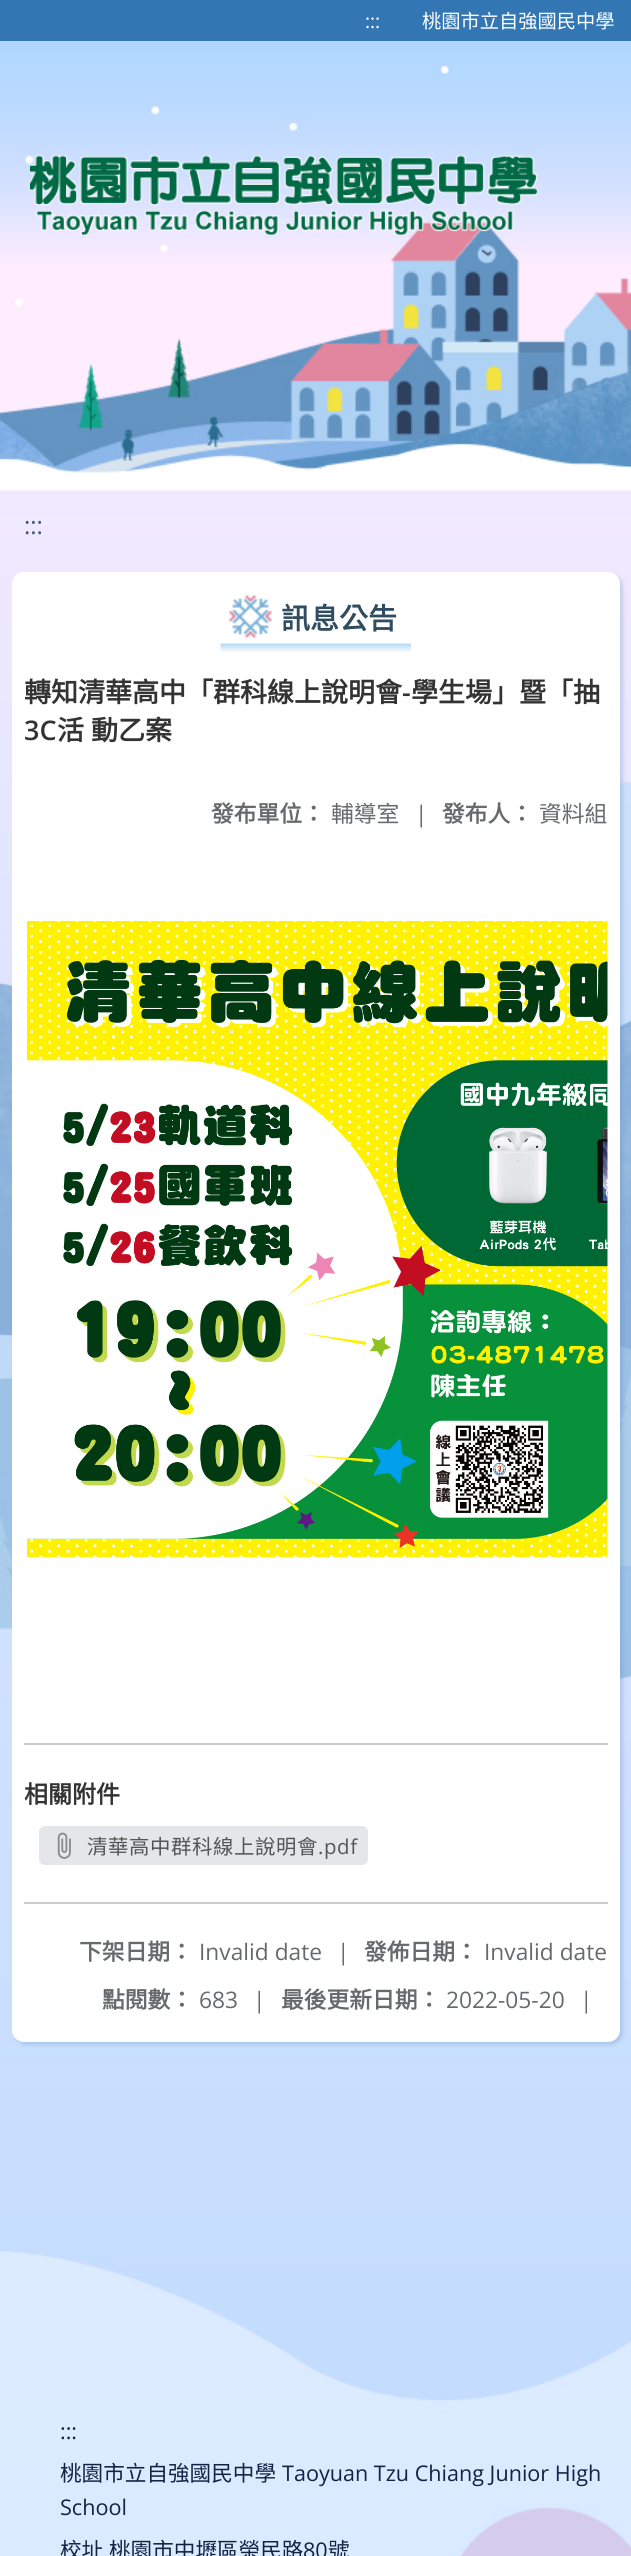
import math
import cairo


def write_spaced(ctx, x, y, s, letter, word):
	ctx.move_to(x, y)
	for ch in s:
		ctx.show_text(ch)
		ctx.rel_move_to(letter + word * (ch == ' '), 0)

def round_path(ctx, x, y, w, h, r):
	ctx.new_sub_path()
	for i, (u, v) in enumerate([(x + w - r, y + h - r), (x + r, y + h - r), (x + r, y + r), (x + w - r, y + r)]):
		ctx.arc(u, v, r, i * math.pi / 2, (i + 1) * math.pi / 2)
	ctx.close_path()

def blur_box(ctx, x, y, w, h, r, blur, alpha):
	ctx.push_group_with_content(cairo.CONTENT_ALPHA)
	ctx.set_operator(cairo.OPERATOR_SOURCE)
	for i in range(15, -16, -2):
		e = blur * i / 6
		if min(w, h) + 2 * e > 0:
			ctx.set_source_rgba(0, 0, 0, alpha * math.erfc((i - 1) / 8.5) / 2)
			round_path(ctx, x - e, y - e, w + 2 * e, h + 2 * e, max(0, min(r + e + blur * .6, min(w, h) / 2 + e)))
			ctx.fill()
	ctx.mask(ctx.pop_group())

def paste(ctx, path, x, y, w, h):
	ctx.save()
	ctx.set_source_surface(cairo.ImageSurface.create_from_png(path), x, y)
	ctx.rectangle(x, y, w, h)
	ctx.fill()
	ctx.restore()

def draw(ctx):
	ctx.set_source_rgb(1, 1, 1)
	ctx.paint()
	paste(ctx, 'media/1.png', 0, 490, 631, 2066)
	ctx.set_source_rgb(0.196, 0.463, 0.706)
	ctx.rectangle(0, 0, 631, 41)
	ctx.fill()
	ctx.select_font_face('Open Sans')
	ctx.set_font_size(19.25)
	ctx.set_source_rgb(1, 1, 1)
	ctx.move_to(365, 28)
	ctx.show_text(':::')
	ctx.select_font_face('Noto Sans CJK TC')
	ctx.move_to(422, 28)
	ctx.show_text('桃園市立自強國民中學')
	paste(ctx, 'media/2.png', 0, 41, 631, 450)
	paste(ctx, 'media/3.png', 30, 154, 507, 82)
	ctx.select_font_face('Open Sans')
	ctx.set_font_size(24)
	ctx.set_source_rgb(0.22, 0.349, 0.475)
	ctx.move_to(24, 534)
	ctx.show_text(':::')
	ctx.set_source_rgb(0.373, 0.545, 0.733)
	blur_box(ctx, 15, 575, 608, 1470, 12, 2, 0.3)
	ctx.set_source_rgb(1, 1, 1)
	round_path(ctx, 12, 572, 608, 1470, 12)
	ctx.fill()
	paste(ctx, 'media/4.png', 220, 643, 191, 10)
	paste(ctx, 'media/5.png', 229, 595, 43, 43)
	ctx.select_font_face('Noto Sans CJK TC', cairo.FONT_SLANT_NORMAL, cairo.FONT_WEIGHT_BOLD)
	ctx.set_font_size(29)
	ctx.set_source_rgb(0.188, 0.302, 0.376)
	ctx.move_to(281, 629)
	ctx.show_text('訊息公告')
	ctx.set_font_size(27)
	ctx.set_source_rgb(0.2, 0.2, 0.2)
	ctx.move_to(24, 702)
	ctx.show_text('轉知清華高中「群科線上說明會')
	ctx.select_font_face('Open Sans SemiBold')
	ctx.move_to(402, 702)
	ctx.show_text('-')
	ctx.select_font_face('Noto Sans CJK TC', cairo.FONT_SLANT_NORMAL, cairo.FONT_WEIGHT_BOLD)
	ctx.move_to(411, 702)
	ctx.show_text('學生場」暨「抽')
	ctx.select_font_face('Open Sans SemiBold')
	ctx.move_to(24, 740)
	ctx.show_text('3C')
	ctx.select_font_face('Noto Sans CJK TC', cairo.FONT_SLANT_NORMAL, cairo.FONT_WEIGHT_BOLD)
	write_spaced(ctx, 57, 740, '活 動乙案', 0, 1)
	ctx.set_font_size(22.75)
	ctx.set_source_rgb(0.404, 0.416, 0.424)
	ctx.move_to(211, 822)
	ctx.show_text('發布單位：')
	ctx.select_font_face('Noto Sans CJK TC')
	ctx.move_to(331, 822)
	ctx.show_text('輔導室')
	ctx.select_font_face('Open Sans')
	ctx.move_to(415, 822)
	ctx.show_text('|')
	ctx.select_font_face('Noto Sans CJK TC', cairo.FONT_SLANT_NORMAL, cairo.FONT_WEIGHT_BOLD)
	ctx.move_to(442, 822)
	ctx.show_text('發布人：')
	ctx.select_font_face('Noto Sans CJK TC')
	ctx.move_to(539, 822)
	ctx.show_text('資料組')
	paste(ctx, 'media/6.png', 27, 921, 581, 636)
	ctx.set_source_rgb(0.8, 0.8, 0.8)
	ctx.rectangle(24, 1743, 584, 2)
	ctx.fill()
	ctx.select_font_face('Noto Sans CJK TC', cairo.FONT_SLANT_NORMAL, cairo.FONT_WEIGHT_BOLD)
	ctx.set_font_size(24)
	ctx.set_source_rgb(0.2, 0.2, 0.2)
	ctx.move_to(24, 1803)
	ctx.show_text('相關附件')
	ctx.set_source_rgb(0.898, 0.902, 0.914)
	round_path(ctx, 40, 1827, 327, 37, 5)
	ctx.fill_preserve()
	ctx.stroke()
	paste(ctx, 'media/7.png', 57, 1832, 14, 27)
	ctx.select_font_face('Noto Sans CJK TC')
	ctx.set_font_size(20.4)
	ctx.set_source_rgb(0.333, 0.333, 0.333)
	write_spaced(ctx, 87, 1854, '清華高中群科線上說明會', 0.6, 0)
	ctx.select_font_face('Open Sans')
	write_spaced(ctx, 318, 1854, '.pdf', 0.6, 0)
	ctx.set_source_rgb(0.8, 0.8, 0.8)
	ctx.rectangle(24, 1902, 584, 2)
	ctx.fill()
	ctx.select_font_face('Noto Sans CJK TC', cairo.FONT_SLANT_NORMAL, cairo.FONT_WEIGHT_BOLD)
	ctx.set_font_size(22.75)
	ctx.set_source_rgb(0.404, 0.416, 0.424)
	ctx.move_to(79, 1960)
	ctx.show_text('下架日期：')
	ctx.select_font_face('Open Sans')
	ctx.move_to(199, 1960)
	ctx.show_text('Invalid date')
	ctx.move_to(337, 1960)
	ctx.show_text('|')
	ctx.select_font_face('Noto Sans CJK TC', cairo.FONT_SLANT_NORMAL, cairo.FONT_WEIGHT_BOLD)
	ctx.move_to(364, 1960)
	ctx.show_text('發佈日期：')
	ctx.select_font_face('Open Sans')
	ctx.move_to(484, 1960)
	ctx.show_text('Invalid date')
	ctx.select_font_face('Noto Sans CJK TC', cairo.FONT_SLANT_NORMAL, cairo.FONT_WEIGHT_BOLD)
	ctx.move_to(102, 2008)
	ctx.show_text('點閱數：')
	ctx.select_font_face('Open Sans')
	ctx.move_to(199, 2008)
	ctx.show_text('683')
	ctx.move_to(253, 2008)
	ctx.show_text('|')
	ctx.select_font_face('Noto Sans CJK TC', cairo.FONT_SLANT_NORMAL, cairo.FONT_WEIGHT_BOLD)
	ctx.move_to(281, 2008)
	ctx.show_text('最後更新日期：')
	ctx.select_font_face('Open Sans')
	ctx.move_to(446, 2008)
	ctx.show_text('2022-05-20')
	ctx.move_to(580, 2008)
	ctx.show_text('|')
	ctx.set_font_size(21.6)
	ctx.set_source_rgb(0.082, 0.137, 0.267)
	ctx.move_to(60, 2439)
	ctx.show_text(':::')
	ctx.select_font_face('Noto Sans CJK TC')
	ctx.move_to(60, 2481)
	ctx.show_text('桃園市立自強國民中學')
	ctx.select_font_face('Open Sans')
	ctx.move_to(282, 2481)
	ctx.show_text('Taoyuan Tzu Chiang Junior High')
	ctx.move_to(60, 2515)
	ctx.show_text('School')
	ctx.select_font_face('Noto Sans CJK TC')
	ctx.move_to(60, 2558)
	ctx.show_text('校址')
	ctx.move_to(109, 2558)
	ctx.show_text('桃園市中壢區榮民路')
	ctx.select_font_face('Open Sans')
	ctx.move_to(303, 2558)
	ctx.show_text('80')
	ctx.select_font_face('Noto Sans CJK TC')
	ctx.move_to(328, 2558)
	ctx.show_text('號')


surface = cairo.ImageSurface(cairo.FORMAT_RGB24, 631, 2556)
ctx = cairo.Context(surface)
options = cairo.FontOptions()
options.set_hint_metrics(cairo.HINT_METRICS_OFF)
options.set_hint_style(cairo.HINT_STYLE_NONE)
ctx.set_font_options(options)
ctx.set_miter_limit(4)
draw(ctx)
surface.write_to_png('image.png')
